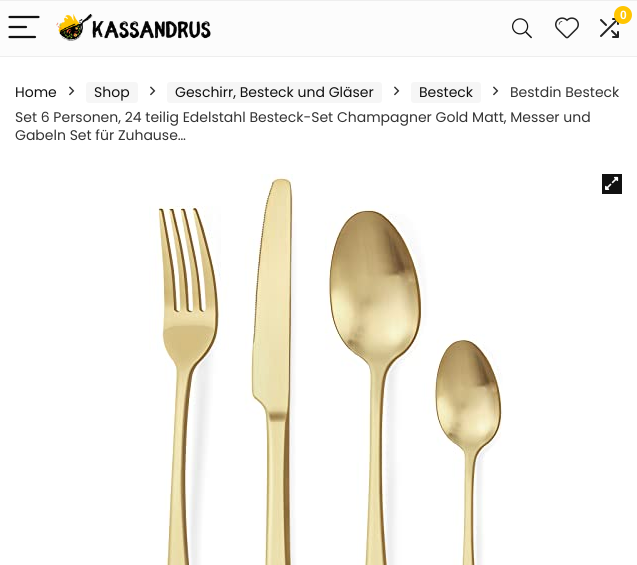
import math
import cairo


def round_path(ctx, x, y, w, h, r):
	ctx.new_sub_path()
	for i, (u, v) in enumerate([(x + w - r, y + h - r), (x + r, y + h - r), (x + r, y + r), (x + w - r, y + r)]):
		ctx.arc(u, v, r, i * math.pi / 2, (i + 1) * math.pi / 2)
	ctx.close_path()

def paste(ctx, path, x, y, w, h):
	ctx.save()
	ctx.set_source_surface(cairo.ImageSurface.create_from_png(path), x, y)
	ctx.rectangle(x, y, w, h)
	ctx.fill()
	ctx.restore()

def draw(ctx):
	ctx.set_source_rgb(1, 1, 1)
	ctx.paint()
	ctx.set_source_rgb(0.988, 0.988, 0.988)
	ctx.rectangle(0, 1, 637, 55)
	ctx.fill()
	ctx.set_source_rgb(0.933, 0.933, 0.933)
	ctx.rectangle(0, 0, 637, 1)
	ctx.rectangle(0, 56, 637, 1)
	ctx.fill()
	ctx.new_path()
	ctx.move_to(9.5, 17)
	ctx.line_to(38.5, 17)
	ctx.move_to(9.5, 27)
	ctx.line_to(26, 27)
	ctx.move_to(9.5, 37)
	ctx.line_to(35, 37)
	ctx.set_source_rgb(0.067, 0.067, 0.067)
	ctx.set_line_width(2.2)
	ctx.set_line_cap(cairo.LINE_CAP_ROUND)
	ctx.stroke()
	paste(ctx, 'media/1.png', 56, 14, 155, 27)
	paste(ctx, 'media/2.png', 600, 18, 19, 20)
	ctx.set_source_rgb(1, 0.773, 0)
	ctx.arc(623, 15, 9, 0, 2 * math.pi)
	ctx.fill()
	ctx.select_font_face('Liberation Sans', cairo.FONT_SLANT_NORMAL, cairo.FONT_WEIGHT_BOLD)
	ctx.set_font_size(12)
	ctx.set_source_rgb(1, 1, 1)
	ctx.move_to(620, 19)
	ctx.show_text('0')
	paste(ctx, 'media/3.png', 512, 18, 20, 21)
	paste(ctx, 'media/4.png', 555, 17, 24, 22)
	ctx.select_font_face('Poppins')
	ctx.set_font_size(14)
	ctx.set_source_rgb(0.067, 0.067, 0.067)
	ctx.move_to(15, 97)
	ctx.show_text('Home')
	paste(ctx, 'media/5.png', 69, 86, 6, 10)
	ctx.set_source_rgb(0.961, 0.961, 0.961)
	round_path(ctx, 86, 82, 52, 21, 3)
	ctx.fill()
	ctx.set_source_rgb(0.067, 0.067, 0.067)
	ctx.move_to(94, 97)
	ctx.show_text('Shop')
	paste(ctx, 'media/5.png', 150, 86, 6, 10)
	ctx.set_source_rgb(0.961, 0.961, 0.961)
	round_path(ctx, 167, 82, 215, 21, 3)
	ctx.fill()
	ctx.set_source_rgb(0.067, 0.067, 0.067)
	ctx.move_to(175, 97)
	ctx.show_text('Geschirr, Besteck und Gläser')
	paste(ctx, 'media/5.png', 394, 86, 6, 10)
	ctx.set_source_rgb(0.961, 0.961, 0.961)
	round_path(ctx, 411, 82, 70, 21, 3)
	ctx.fill()
	ctx.set_source_rgb(0.067, 0.067, 0.067)
	ctx.move_to(419, 97)
	ctx.show_text('Besteck')
	paste(ctx, 'media/5.png', 493, 86, 6, 10)
	ctx.set_source_rgb(0.2, 0.2, 0.2)
	for x, y, s in [
		(510, 97, 'Bestdin Besteck'),
		(15, 122, 'Set 6 Personen, 24 teilig Edelstahl Besteck-Set Champagner Gold Matt, Messer und'),
		(15, 140, 'Gabeln Set für Zuhause…'),
	]:
		ctx.move_to(x, y)
		ctx.show_text(s)
	paste(ctx, 'media/6.png', 149, 174, 354, 391)
	ctx.set_source_rgb(0.067, 0.067, 0.067)
	ctx.rectangle(602, 174, 20, 20)
	ctx.fill()
	paste(ctx, 'media/7.png', 605, 176, 14, 14)


surface = cairo.ImageSurface(cairo.FORMAT_RGB24, 637, 565)
ctx = cairo.Context(surface)
options = cairo.FontOptions()
options.set_hint_metrics(cairo.HINT_METRICS_OFF)
options.set_hint_style(cairo.HINT_STYLE_NONE)
ctx.set_font_options(options)
ctx.set_miter_limit(4)
draw(ctx)
surface.write_to_png('image.png')
